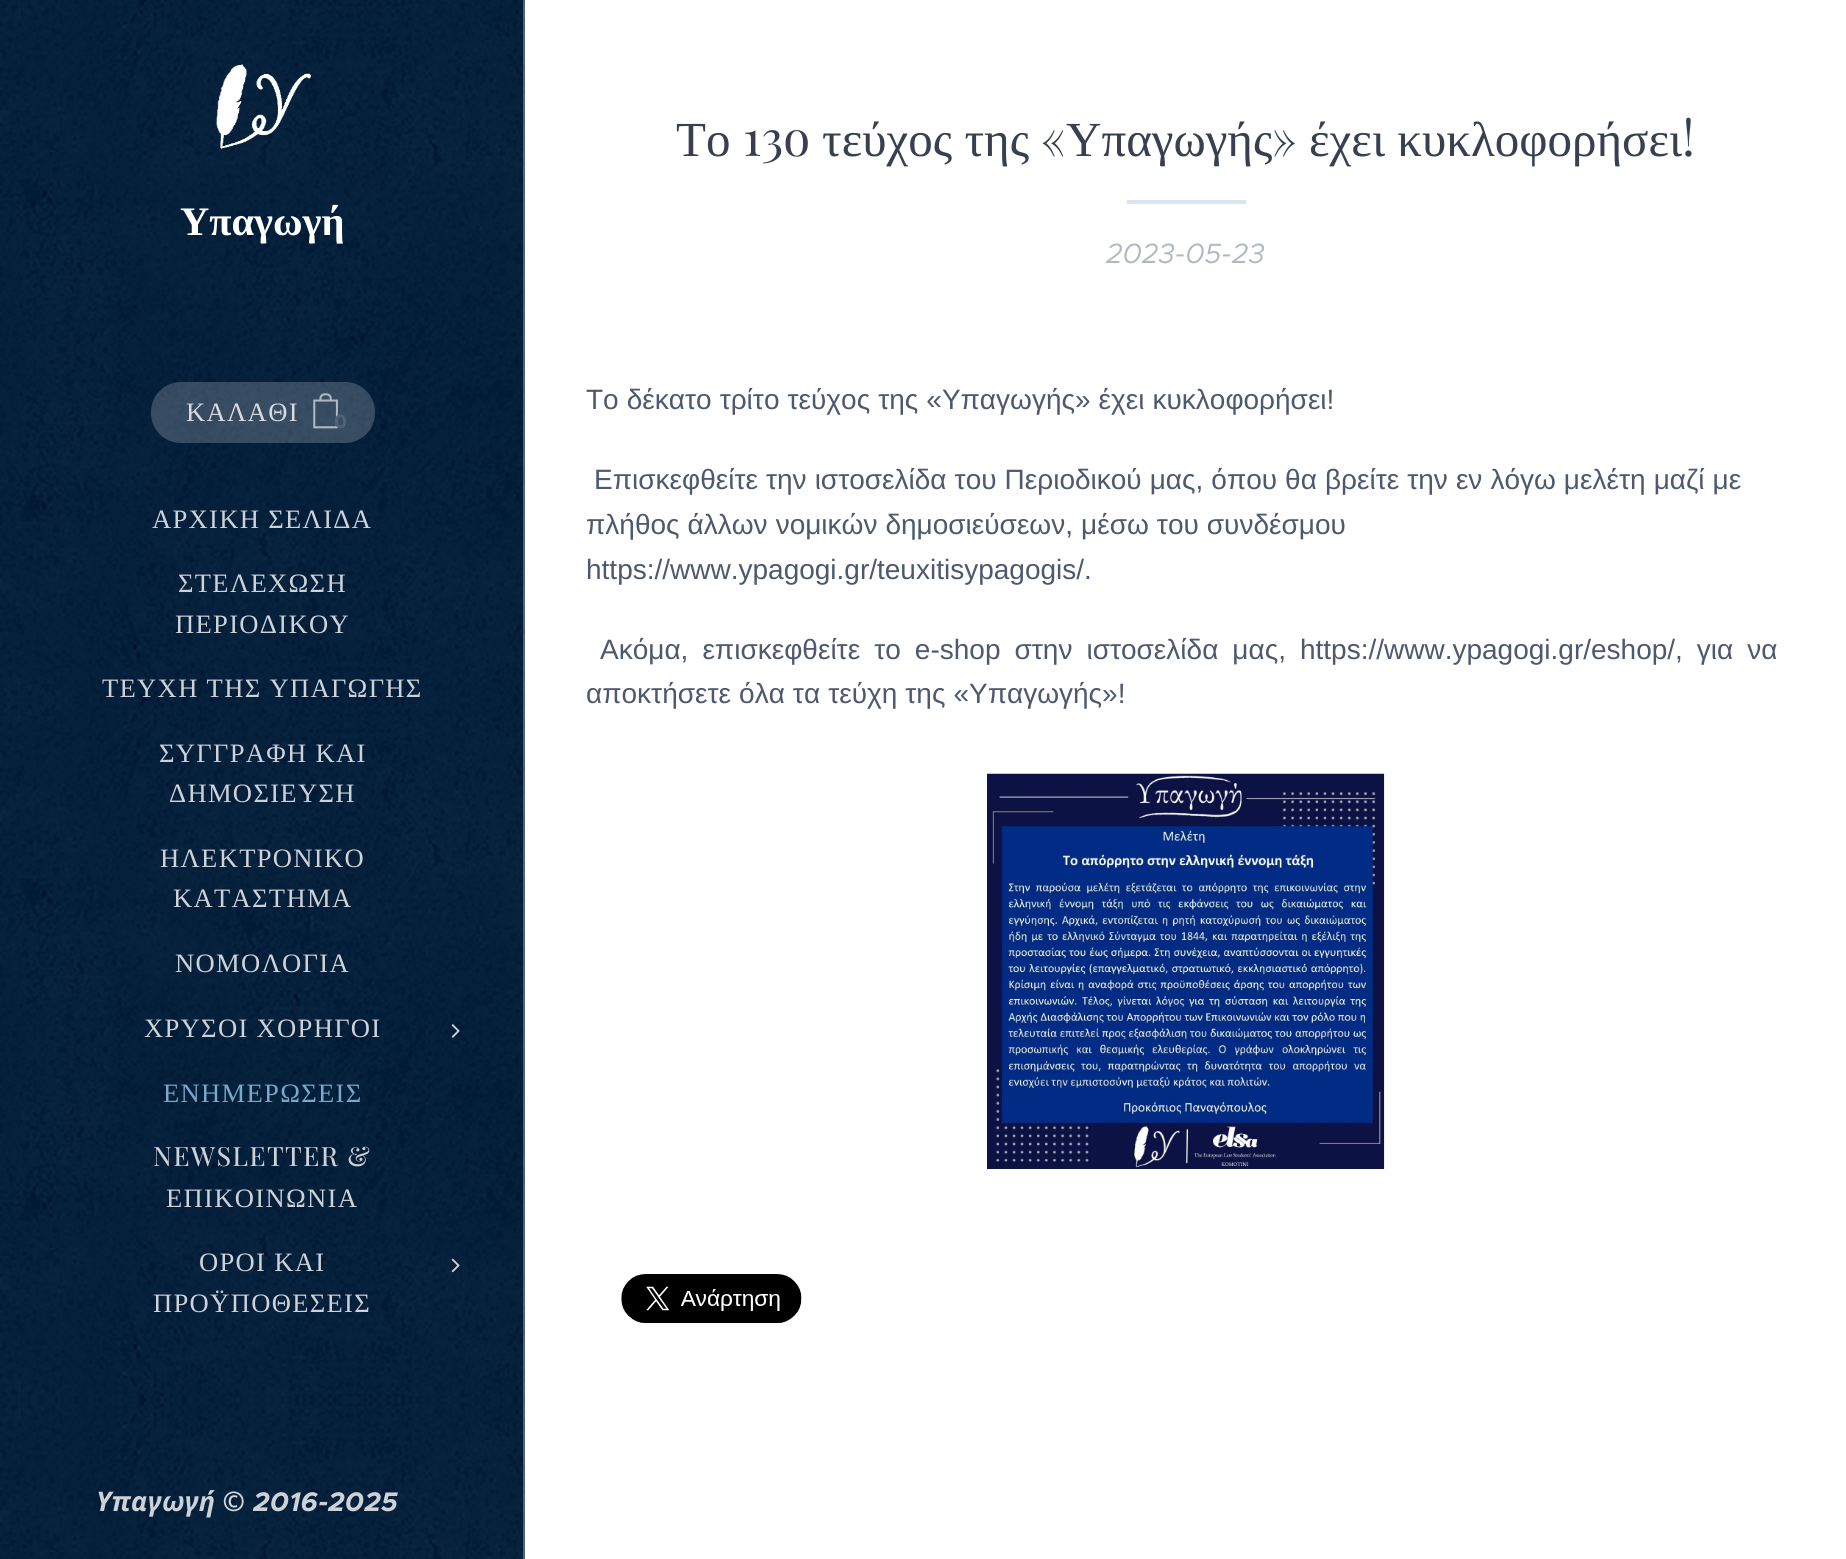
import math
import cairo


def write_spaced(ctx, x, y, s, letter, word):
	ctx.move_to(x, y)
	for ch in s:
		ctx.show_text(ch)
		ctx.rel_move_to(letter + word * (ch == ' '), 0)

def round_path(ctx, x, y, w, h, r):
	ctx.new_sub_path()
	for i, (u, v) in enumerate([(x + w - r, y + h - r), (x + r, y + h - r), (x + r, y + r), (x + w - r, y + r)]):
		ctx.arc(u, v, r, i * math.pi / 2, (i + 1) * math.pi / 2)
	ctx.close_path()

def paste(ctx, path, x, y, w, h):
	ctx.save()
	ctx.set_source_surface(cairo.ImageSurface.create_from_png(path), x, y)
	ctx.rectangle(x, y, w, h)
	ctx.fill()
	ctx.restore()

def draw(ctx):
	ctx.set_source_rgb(1, 1, 1)
	ctx.paint()
	paste(ctx, 'media/1.png', 0, 0, 525, 1559)
	paste(ctx, 'media/2.png', 216, 64, 96, 85)
	ctx.select_font_face('Liberation Serif', cairo.FONT_SLANT_NORMAL, cairo.FONT_WEIGHT_BOLD)
	ctx.set_font_size(40.5)
	ctx.set_source_rgb(1, 1, 1)
	ctx.move_to(180, 235)
	ctx.show_text('Υπαγωγή')
	ctx.set_source_rgba(1, 1, 1, 0.2)
	round_path(ctx, 151, 382, 224, 61, 30)
	ctx.fill()
	ctx.select_font_face('Liberation Serif')
	ctx.set_font_size(26.6)
	ctx.set_source_rgb(0.843, 0.859, 0.878)
	write_spaced(ctx, 186, 421, 'ΚΑΛΑΘΙ', 1.3, 0)
	paste(ctx, 'media/3.png', 313, 393, 25, 36)
	ctx.select_font_face('Montserrat', cairo.FONT_SLANT_NORMAL, cairo.FONT_WEIGHT_BOLD)
	ctx.set_font_size(19)
	ctx.set_source_rgb(0.314, 0.384, 0.463)
	ctx.move_to(334, 428)
	ctx.show_text('0')
	ctx.select_font_face('Liberation Serif')
	ctx.set_font_size(26.6)
	ctx.set_source_rgb(0.804, 0.824, 0.847)
	for x, y, s in [
		(152, 528, 'ΑΡΧΙΚΗ ΣΕΛΙΔΑ'),
		(178, 592, 'ΣΤΕΛΕΧΩΣΗ'),
		(175, 633, 'ΠΕΡΙΟΔΙΚΟΥ'),
		(102, 697, 'ΤΕΥΧΗ ΤΗΣ ΥΠΑΓΩΓΗΣ'),
		(159, 762, 'ΣΥΓΓΡΑΦΗ ΚΑΙ'),
		(169, 802, 'ΔΗΜΟΣΙΕΥΣΗ'),
		(160, 867, 'ΗΛΕΚΤΡΟΝΙΚΟ'),
		(173, 907, 'ΚΑΤΑΣΤΗΜΑ'),
		(175, 972, 'ΝΟΜΟΛΟΓΙΑ'),
		(144, 1037, 'ΧΡΥΣΟΙ ΧΟΡΗΓΟΙ'),
	]:
		write_spaced(ctx, x, y, s, 1.3, 0)
	paste(ctx, 'media/4.png', 451, 1024, 9, 14)
	ctx.set_source_rgb(0.467, 0.663, 0.792)
	write_spaced(ctx, 163, 1102, 'ΕΝΗΜΕΡΩΣΕΙΣ', 1.3, 0)
	ctx.select_font_face('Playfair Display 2')
	ctx.set_source_rgb(0.804, 0.824, 0.847)
	write_spaced(ctx, 153, 1166, 'NEWSLETTER &', 1.3, 0)
	ctx.select_font_face('Liberation Serif')
	for x, y, s in [
		(166, 1207, 'ΕΠΙΚΟΙΝΩΝΙΑ'),
		(199, 1271, 'ΟΡΟΙ ΚΑΙ'),
		(153, 1312, 'ΠΡΟΫΠΟΘΕΣΕΙΣ'),
	]:
		write_spaced(ctx, x, y, s, 1.3, 0)
	paste(ctx, 'media/5.png', 451, 1258, 9, 15)
	ctx.set_source_rgba(1, 1, 1, 0.3)
	ctx.rectangle(523, 0, 2, 1559)
	ctx.fill()
	ctx.set_font_size(49)
	ctx.set_source_rgb(0.216, 0.247, 0.318)
	ctx.move_to(676, 156)
	ctx.show_text('Το')
	ctx.select_font_face('Playfair Display')
	ctx.move_to(743, 156)
	ctx.show_text('13o')
	ctx.select_font_face('Liberation Serif')
	ctx.move_to(822, 156)
	ctx.show_text('τεύχος της')
	ctx.select_font_face('Playfair Display')
	ctx.move_to(1041, 156)
	ctx.show_text('«')
	ctx.select_font_face('Liberation Serif')
	ctx.move_to(1066, 156)
	ctx.show_text('Υπαγωγής')
	ctx.select_font_face('Playfair Display')
	ctx.move_to(1272, 156)
	ctx.show_text('»')
	ctx.select_font_face('Liberation Serif')
	ctx.move_to(1309, 156)
	ctx.show_text('έχει κυκλοφορήσει')
	ctx.select_font_face('Playfair Display')
	ctx.move_to(1682, 156)
	ctx.show_text('!')
	ctx.set_source_rgb(0.839, 0.898, 0.937)
	ctx.rectangle(1127, 200, 119, 4)
	ctx.fill()
	ctx.select_font_face('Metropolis', cairo.FONT_SLANT_ITALIC)
	ctx.set_font_size(28)
	ctx.set_source_rgb(0.698, 0.722, 0.761)
	ctx.move_to(1106, 263)
	ctx.show_text('2023-05-23')
	ctx.select_font_face('Liberation Sans')
	ctx.set_source_rgb(0.306, 0.345, 0.431)
	for x, y, s in [
		(586, 409, 'Το δέκατο τρίτο τεύχος της «Υπαγωγής» έχει κυκλοφορήσει!'),
		(594, 489, 'Επισκεφθείτε την ιστοσελίδα του Περιοδικού μας, όπου θα βρείτε την εν λόγω μελέτη μαζί με'),
		(586, 534, 'πλήθος άλλων νομικών δημοσιεύσεων, μέσω του συνδέσμου'),
	]:
		write_spaced(ctx, x, y, s, 0, 0.25)
	ctx.move_to(586, 579)
	ctx.show_text('https://www.ypagogi.gr/teuxitisypagogis/.')
	write_spaced(ctx, 600, 659, 'Ακόμα, επισκεφθείτε το e-shop στην ιστοσελίδα μας, https://www.ypagogi.gr/eshop/, για να', 0, 6.25)
	write_spaced(ctx, 586, 703, 'αποκτήσετε όλα τα τεύχη της «Υπαγωγής»!', 0, 0.25)
	paste(ctx, 'media/6.png', 987, 773, 398, 396)
	paste(ctx, 'media/7.png', 621, 1274, 181, 49)
	ctx.select_font_face('Noto Sans', cairo.FONT_SLANT_ITALIC, cairo.FONT_WEIGHT_BOLD)
	ctx.set_font_size(27)
	ctx.set_source_rgb(0.804, 0.824, 0.847)
	write_spaced(ctx, 96, 1511, 'Υπαγωγή ©', 0.25, 0)
	ctx.select_font_face('Metropolis', cairo.FONT_SLANT_ITALIC, cairo.FONT_WEIGHT_BOLD)
	write_spaced(ctx, 253, 1511, '2016-', 0.25, 0)
	write_spaced(ctx, 328, 1511, '2025', 0.25, 0)


surface = cairo.ImageSurface(cairo.FORMAT_RGB24, 1846, 1559)
ctx = cairo.Context(surface)
options = cairo.FontOptions()
options.set_hint_metrics(cairo.HINT_METRICS_OFF)
options.set_hint_style(cairo.HINT_STYLE_NONE)
ctx.set_font_options(options)
ctx.set_miter_limit(4)
draw(ctx)
surface.write_to_png('image.png')
